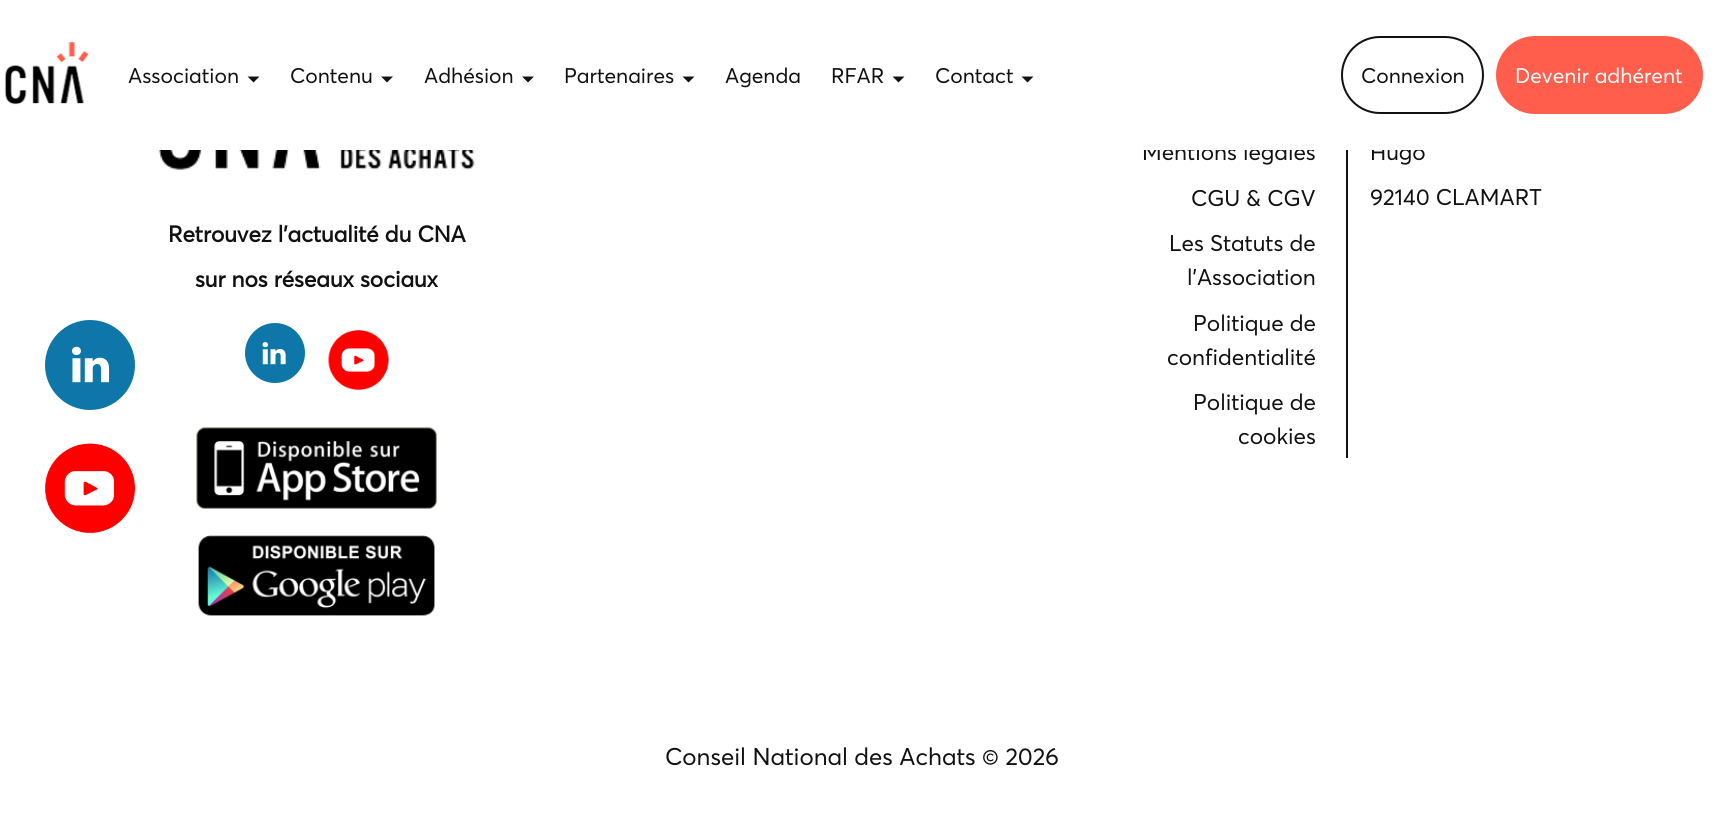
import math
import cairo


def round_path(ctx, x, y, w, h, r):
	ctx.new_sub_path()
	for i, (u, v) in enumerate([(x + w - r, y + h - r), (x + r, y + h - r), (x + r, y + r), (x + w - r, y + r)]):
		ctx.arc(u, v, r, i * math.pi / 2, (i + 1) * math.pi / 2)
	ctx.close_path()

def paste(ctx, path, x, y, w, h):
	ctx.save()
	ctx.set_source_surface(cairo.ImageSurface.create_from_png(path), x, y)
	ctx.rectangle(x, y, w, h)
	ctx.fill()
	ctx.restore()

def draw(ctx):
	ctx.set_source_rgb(1, 1, 1)
	ctx.paint()
	ctx.select_font_face('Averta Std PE')
	ctx.set_font_size(22.5)
	ctx.set_source_rgb(0.067, 0.067, 0.067)
	ctx.move_to(1142, 160)
	ctx.show_text('Mentions légales')
	ctx.move_to(1370, 160)
	ctx.show_text('Hugo')
	ctx.set_source_rgb(1, 1, 1)
	ctx.rectangle(1144, 143, 279, 7)
	ctx.fill()
	paste(ctx, 'media/1.png', 4, 42, 85, 63)
	ctx.set_font_size(21)
	ctx.set_source_rgb(0.067, 0.067, 0.067)
	ctx.move_to(128, 83)
	ctx.show_text('Association')
	ctx.new_path()
	ctx.move_to(247.5, 76.5)
	ctx.line_to(259.5, 76.5)
	ctx.line_to(253.5, 82.5)
	ctx.close_path()
	ctx.fill()
	ctx.move_to(290, 83)
	ctx.show_text('Contenu')
	ctx.new_path()
	ctx.move_to(381, 76.5)
	ctx.line_to(393, 76.5)
	ctx.line_to(387, 82.5)
	ctx.close_path()
	ctx.fill()
	ctx.move_to(424, 83)
	ctx.show_text('Adhésion')
	ctx.new_path()
	ctx.move_to(522, 76.5)
	ctx.line_to(534, 76.5)
	ctx.line_to(528, 82.5)
	ctx.close_path()
	ctx.fill()
	ctx.move_to(564, 83)
	ctx.show_text('Partenaires')
	ctx.new_path()
	ctx.move_to(682.5, 76.5)
	ctx.line_to(694.5, 76.5)
	ctx.line_to(688.5, 82.5)
	ctx.close_path()
	ctx.fill()
	ctx.move_to(725, 83)
	ctx.show_text('Agenda')
	ctx.move_to(831, 83)
	ctx.show_text('RFAR')
	ctx.new_path()
	ctx.move_to(892.5, 76.5)
	ctx.line_to(904.5, 76.5)
	ctx.line_to(898.5, 82.5)
	ctx.close_path()
	ctx.fill()
	ctx.move_to(935, 83)
	ctx.show_text('Contact')
	ctx.new_path()
	ctx.move_to(1021.5, 76.5)
	ctx.line_to(1033.5, 76.5)
	ctx.line_to(1027.5, 82.5)
	ctx.close_path()
	ctx.fill()
	round_path(ctx, 1342, 37, 141, 76, 38)
	ctx.stroke()
	ctx.move_to(1361, 83)
	ctx.show_text('Connexion')
	ctx.set_source_rgb(1, 0.369, 0.302)
	round_path(ctx, 1497, 37, 205, 76, 38)
	ctx.fill_preserve()
	ctx.stroke()
	ctx.set_source_rgb(1, 1, 1)
	ctx.move_to(1515, 83)
	ctx.show_text('Devenir adhérent')
	ctx.set_source_rgb(0.055, 0.463, 0.659)
	ctx.new_path()
	ctx.arc(90, 365, 45, 0, 2 * math.pi)
	ctx.fill()
	paste(ctx, 'media/2.png', 72, 346, 38, 37)
	paste(ctx, 'media/3.png', 45, 443, 90, 91)
	ctx.set_source_rgb(0.067, 0.067, 0.067)
	ctx.rectangle(1346, 150, 2, 308)
	ctx.fill()
	ctx.set_font_size(22.5)
	for x, y, s in [
		(1191, 206, 'CGU & CGV'),
		(1169, 251, 'Les Statuts de'),
		(1187, 285, 'l\'Association'),
		(1193, 331, 'Politique de'),
		(1167, 365, 'confidentialité'),
		(1193, 410, 'Politique de'),
		(1238, 444, 'cookies'),
		(1370, 205, '92140 CLAMART'),
	]:
		ctx.move_to(x, y)
		ctx.show_text(s)
	paste(ctx, 'media/4.png', 158, 150, 317, 20)
	ctx.select_font_face('Averta Std PE', cairo.FONT_SLANT_NORMAL, cairo.FONT_WEIGHT_BOLD)
	ctx.move_to(168, 242)
	ctx.show_text('Retrouvez l\'actualité du CNA')
	ctx.move_to(195, 287)
	ctx.show_text('sur nos réseaux sociaux')
	ctx.set_source_rgb(0.055, 0.463, 0.659)
	ctx.new_path()
	ctx.arc(275, 353, 30, 0, 2 * math.pi)
	ctx.fill()
	paste(ctx, 'media/5.png', 262, 342, 24, 23)
	paste(ctx, 'media/6.png', 328, 330, 61, 60)
	paste(ctx, 'media/7.png', 196, 427, 241, 82)
	paste(ctx, 'media/8.png', 198, 535, 237, 81)
	ctx.select_font_face('Averta Std PE')
	ctx.set_font_size(24)
	ctx.set_source_rgb(0.067, 0.067, 0.067)
	ctx.move_to(665, 765)
	ctx.show_text('Conseil National des Achats © 2026')


surface = cairo.ImageSurface(cairo.FORMAT_RGB24, 1724, 839)
ctx = cairo.Context(surface)
options = cairo.FontOptions()
options.set_hint_metrics(cairo.HINT_METRICS_OFF)
options.set_hint_style(cairo.HINT_STYLE_NONE)
ctx.set_font_options(options)
ctx.set_miter_limit(4)
draw(ctx)
surface.write_to_png('image.png')
